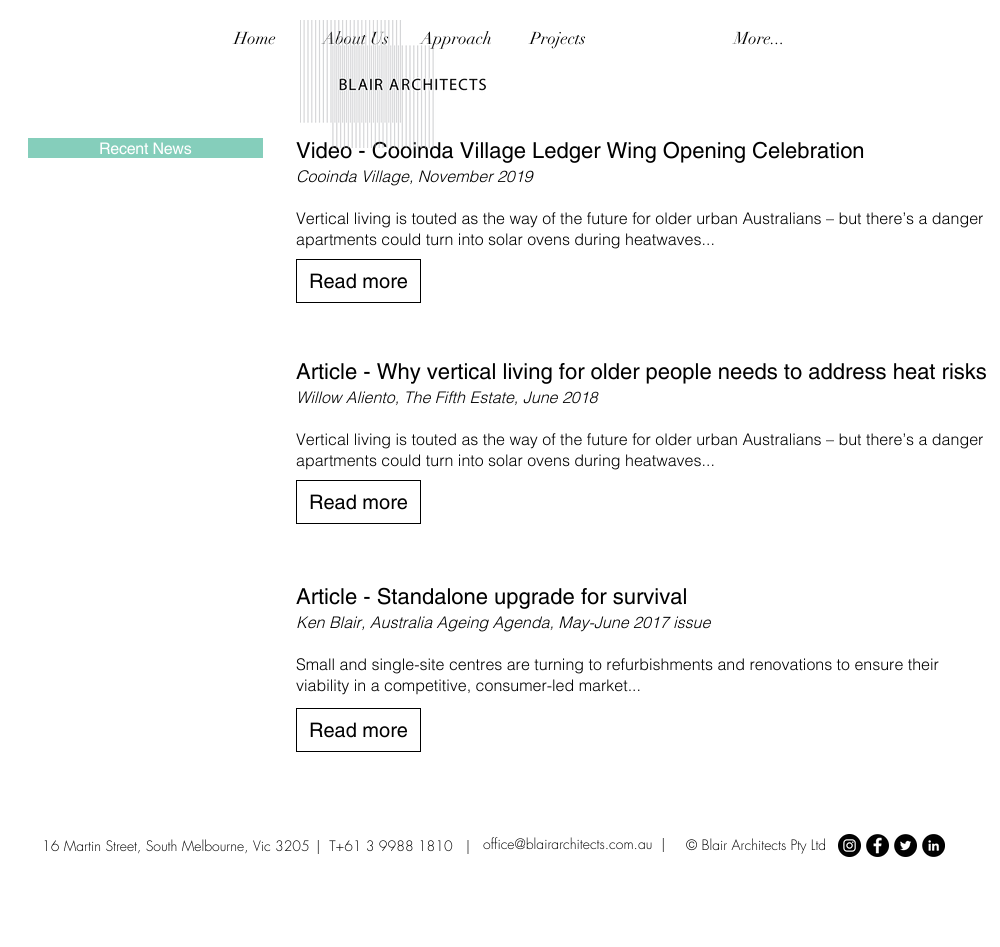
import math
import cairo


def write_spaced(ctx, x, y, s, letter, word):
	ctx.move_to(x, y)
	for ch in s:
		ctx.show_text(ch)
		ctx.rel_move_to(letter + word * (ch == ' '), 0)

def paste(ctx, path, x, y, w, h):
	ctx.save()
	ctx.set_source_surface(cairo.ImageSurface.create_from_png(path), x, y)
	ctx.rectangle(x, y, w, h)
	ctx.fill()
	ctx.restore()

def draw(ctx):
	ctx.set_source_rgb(1, 1, 1)
	ctx.paint()
	ctx.select_font_face('didot')
	ctx.set_font_size(17)
	ctx.set_source_rgb(0, 0, 0)
	for x, y, s in [
		(234, 44, 'Home'),
		(323, 44, 'About Us'),
		(421, 44, 'Approach'),
		(530, 44, 'Projects'),
		(734, 44, 'More...'),
	]:
		ctx.move_to(x, y)
		ctx.show_text(s)
	ctx.select_font_face('helvetica')
	ctx.set_font_size(22)
	ctx.move_to(296, 158)
	ctx.show_text('Video - Cooinda Village Ledger Wing Opening Celebration')
	paste(ctx, 'media/1.png', 300, 20, 186, 128)
	ctx.set_source_rgb(0.522, 0.808, 0.733)
	ctx.rectangle(28, 138, 235, 20)
	ctx.fill()
	ctx.set_font_size(16)
	ctx.set_source_rgb(1, 1, 1)
	write_spaced(ctx, 99, 154, 'Recent News', -0.25, 0)
	ctx.select_font_face('helvetica Light', cairo.FONT_SLANT_ITALIC)
	ctx.set_source_rgb(0, 0, 0)
	ctx.move_to(296, 182)
	ctx.show_text('Cooinda Village, November 2019')
	ctx.select_font_face('helvetica Light')
	ctx.move_to(296, 224)
	ctx.show_text('Vertical living is touted as the way of the future for older urban Australians – but there’s a danger')
	ctx.move_to(296, 245)
	ctx.show_text('apartments could turn into solar ovens during heatwaves...')
	ctx.rectangle(296.5, 259.5, 124, 43)
	ctx.set_line_width(1)
	ctx.stroke()
	ctx.select_font_face('helvetica')
	ctx.set_font_size(20)
	ctx.move_to(309, 288)
	ctx.show_text('Read more')
	ctx.set_font_size(22)
	ctx.move_to(296, 379)
	ctx.show_text('Article - Why vertical living for older people needs to address heat risks')
	ctx.select_font_face('helvetica Light', cairo.FONT_SLANT_ITALIC)
	ctx.set_font_size(16)
	ctx.move_to(296, 403)
	ctx.show_text('Willow Aliento, The Fifth Estate, June 2018')
	ctx.select_font_face('helvetica Light')
	ctx.move_to(296, 445)
	ctx.show_text('Vertical living is touted as the way of the future for older urban Australians – but there’s a danger')
	ctx.move_to(296, 466)
	ctx.show_text('apartments could turn into solar ovens during heatwaves...')
	ctx.rectangle(296.5, 480.5, 124, 43)
	ctx.stroke()
	ctx.select_font_face('helvetica')
	ctx.set_font_size(20)
	ctx.move_to(309, 509)
	ctx.show_text('Read more')
	ctx.set_font_size(22)
	ctx.move_to(296, 604)
	ctx.show_text('Article - Standalone upgrade for survival')
	ctx.select_font_face('helvetica Light', cairo.FONT_SLANT_ITALIC)
	ctx.set_font_size(16)
	ctx.move_to(296, 628)
	ctx.show_text('Ken Blair, Australia Ageing Agenda, May-June 2017 issue')
	ctx.select_font_face('helvetica Light')
	ctx.move_to(296, 670)
	ctx.show_text('Small and single-site centres are turning to refurbishments and renovations to ensure their')
	ctx.move_to(296, 691)
	ctx.show_text('viability in a competitive, consumer-led market...')
	ctx.rectangle(296.5, 708.5, 124, 43)
	ctx.stroke()
	ctx.select_font_face('helvetica')
	ctx.set_font_size(20)
	ctx.move_to(309, 737)
	ctx.show_text('Read more')
	ctx.select_font_face('futura Light')
	ctx.set_font_size(14)
	for x, y, s in [
		(42, 851, '16 Martin Street, South Melbourne, Vic 3205'),
		(316, 851, '|  T+61 3 9988 1810   |'),
		(483, 849, 'office@blairarchitects.com.au'),
		(661, 849, '|'),
		(686, 850, '© Blair Architects Pty Ltd'),
	]:
		ctx.move_to(x, y)
		ctx.show_text(s)
	paste(ctx, 'media/2.png', 838, 834, 23, 23)
	paste(ctx, 'media/3.png', 866, 834, 23, 23)
	paste(ctx, 'media/4.png', 894, 834, 23, 23)
	paste(ctx, 'media/5.png', 922, 834, 23, 23)


surface = cairo.ImageSurface(cairo.FORMAT_RGB24, 1000, 947)
ctx = cairo.Context(surface)
options = cairo.FontOptions()
options.set_hint_metrics(cairo.HINT_METRICS_OFF)
options.set_hint_style(cairo.HINT_STYLE_NONE)
ctx.set_font_options(options)
ctx.set_miter_limit(4)
draw(ctx)
surface.write_to_png('image.png')
